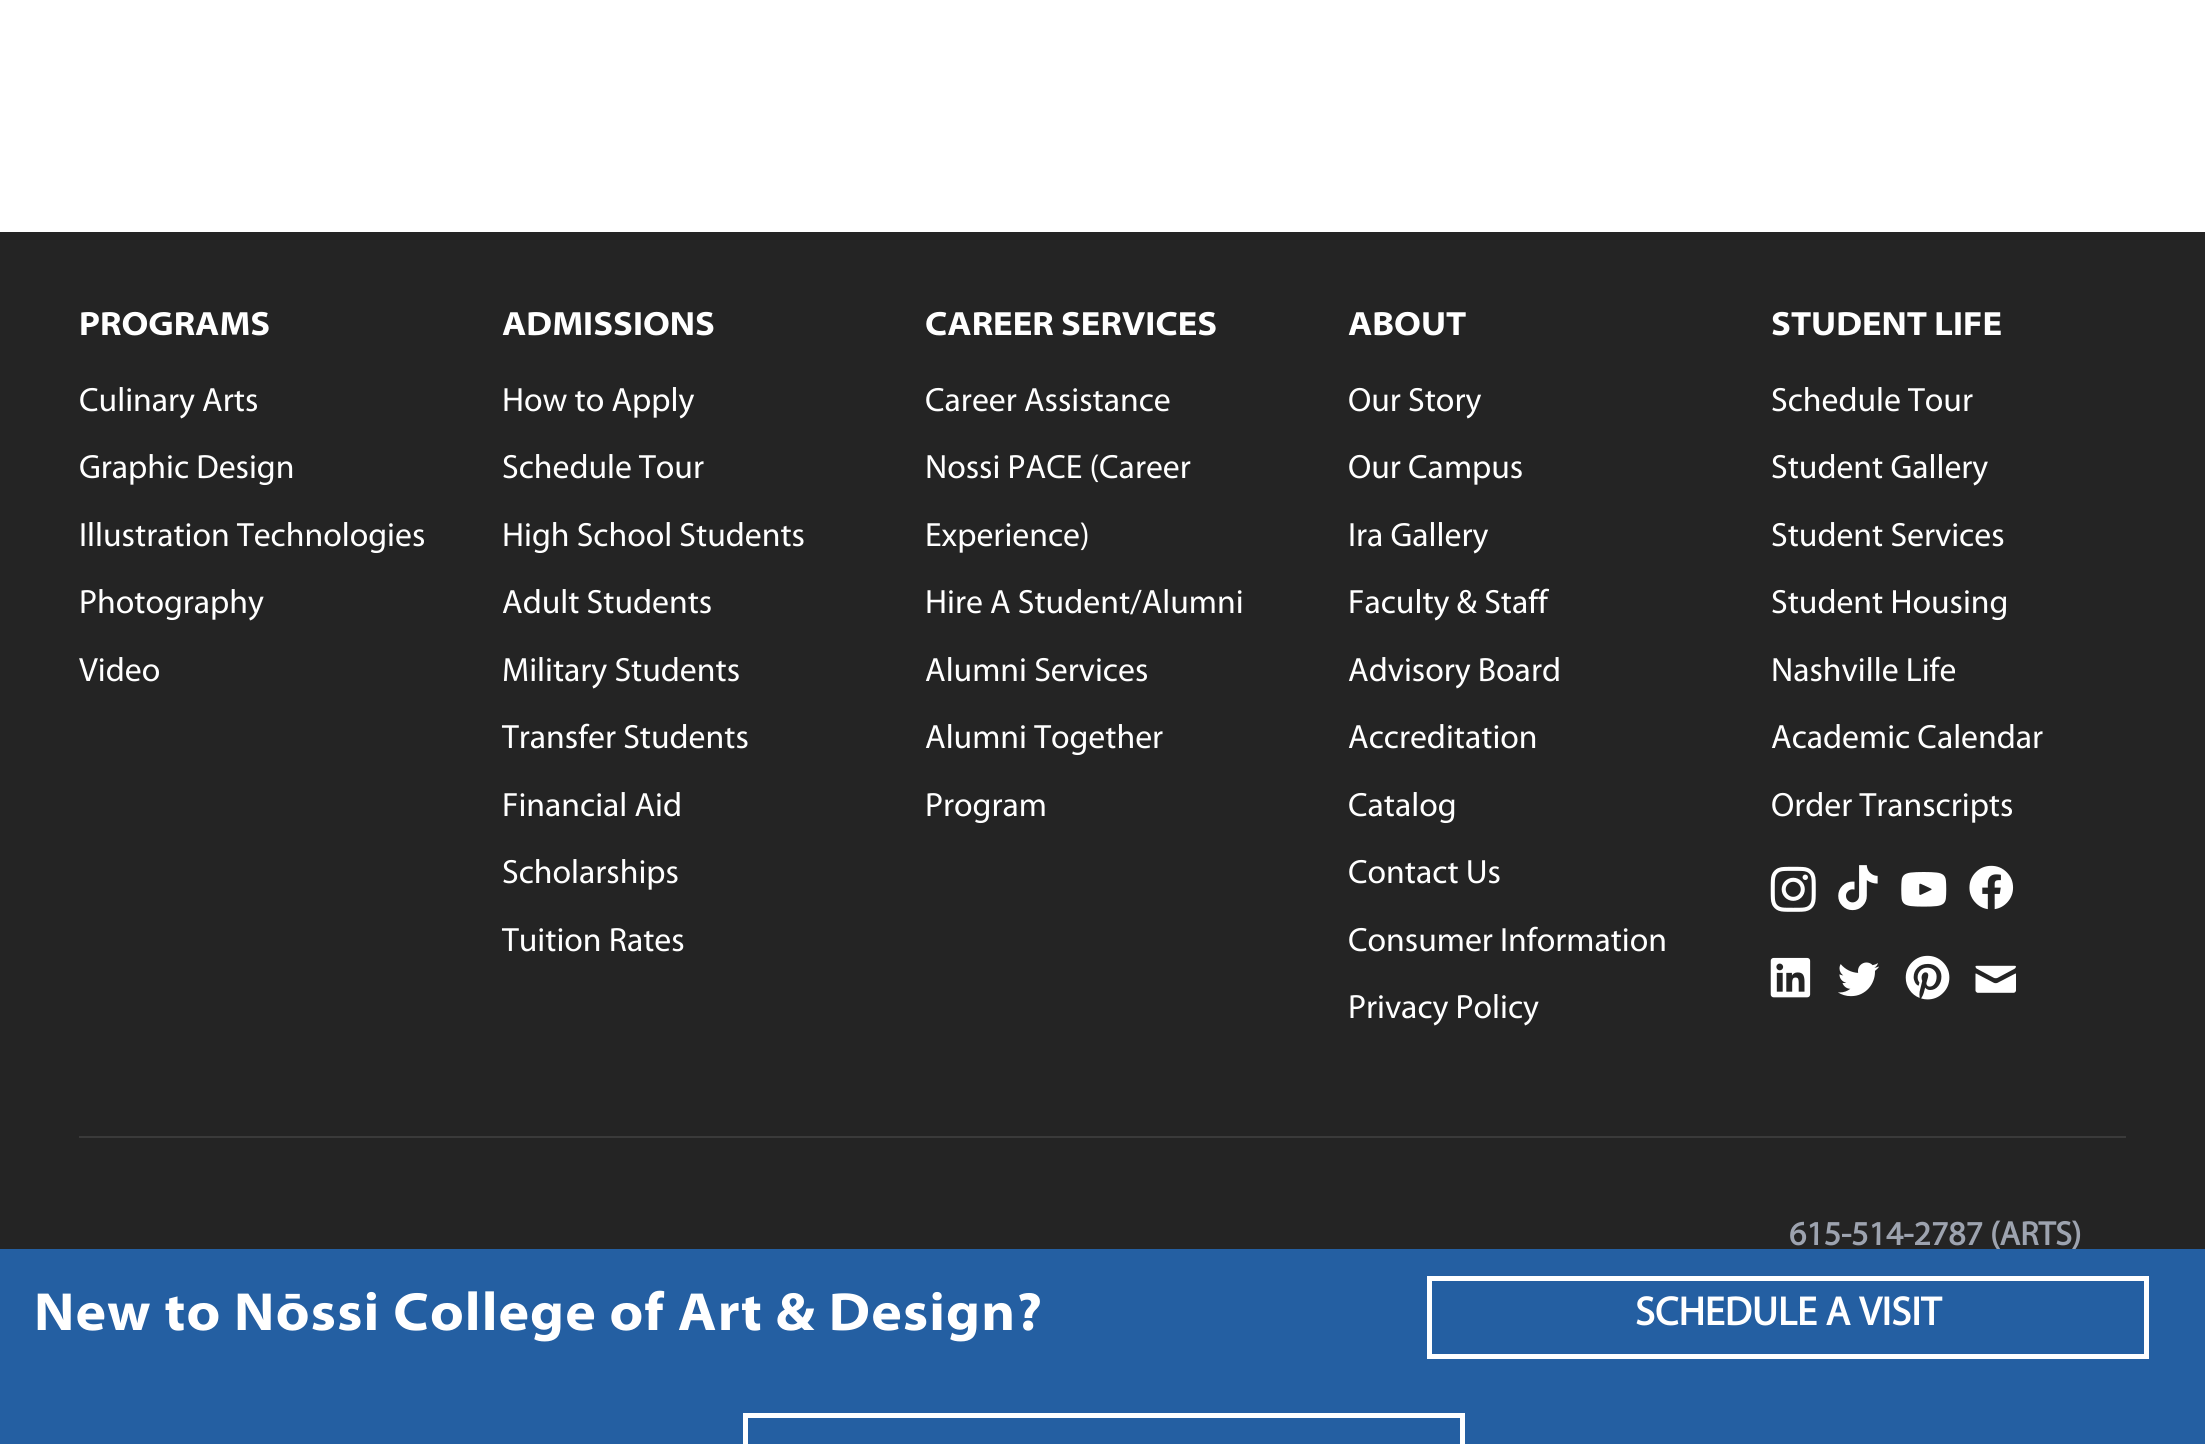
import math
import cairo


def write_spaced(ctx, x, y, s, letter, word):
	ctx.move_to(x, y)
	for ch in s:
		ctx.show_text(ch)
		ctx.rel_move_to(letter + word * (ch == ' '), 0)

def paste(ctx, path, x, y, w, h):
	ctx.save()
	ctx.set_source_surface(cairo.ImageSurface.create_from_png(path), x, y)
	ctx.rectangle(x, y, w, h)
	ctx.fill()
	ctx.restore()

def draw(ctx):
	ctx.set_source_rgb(1, 1, 1)
	ctx.paint()
	ctx.set_source_rgb(0.141, 0.141, 0.141)
	ctx.rectangle(0, 232, 2205, 1212)
	ctx.fill()
	ctx.select_font_face('Myriad', cairo.FONT_SLANT_NORMAL, cairo.FONT_WEIGHT_BOLD)
	ctx.set_font_size(33.75)
	ctx.set_source_rgb(1, 1, 1)
	ctx.move_to(79, 335)
	ctx.show_text('PROGRAMS')
	ctx.select_font_face('Myriad')
	for x, y, s in [
		(79, 411, 'Culinary Arts'),
		(79, 478, 'Graphic Design'),
		(79, 546, 'Illustration Technologies'),
		(79, 613, 'Photography'),
		(79, 681, 'Video'),
	]:
		ctx.move_to(x, y)
		ctx.show_text(s)
	ctx.select_font_face('Myriad', cairo.FONT_SLANT_NORMAL, cairo.FONT_WEIGHT_BOLD)
	ctx.move_to(502, 335)
	ctx.show_text('ADMISSIONS')
	ctx.select_font_face('Myriad')
	for x, y, s in [
		(502, 411, 'How to Apply'),
		(502, 478, 'Schedule Tour'),
		(502, 546, 'High School Students'),
		(502, 613, 'Adult Students'),
		(502, 681, 'Military Students'),
		(502, 748, 'Transfer Students'),
		(502, 816, 'Financial Aid'),
		(502, 883, 'Scholarships'),
		(502, 951, 'Tuition Rates'),
	]:
		ctx.move_to(x, y)
		ctx.show_text(s)
	ctx.select_font_face('Myriad', cairo.FONT_SLANT_NORMAL, cairo.FONT_WEIGHT_BOLD)
	ctx.move_to(925, 335)
	ctx.show_text('CAREER SERVICES')
	ctx.select_font_face('Myriad')
	for x, y, s in [
		(925, 411, 'Career Assistance'),
		(925, 478, 'Nossi PACE (Career'),
		(925, 546, 'Experience)'),
		(925, 613, 'Hire A Student/Alumni'),
		(925, 681, 'Alumni Services'),
		(925, 748, 'Alumni Together'),
		(925, 816, 'Program'),
	]:
		ctx.move_to(x, y)
		ctx.show_text(s)
	ctx.select_font_face('Myriad', cairo.FONT_SLANT_NORMAL, cairo.FONT_WEIGHT_BOLD)
	ctx.move_to(1348, 335)
	ctx.show_text('ABOUT')
	ctx.select_font_face('Myriad')
	for x, y, s in [
		(1348, 411, 'Our Story'),
		(1348, 478, 'Our Campus'),
		(1348, 546, 'Ira Gallery'),
		(1348, 613, 'Faculty & Staff'),
		(1348, 681, 'Advisory Board'),
		(1348, 748, 'Accreditation'),
		(1348, 816, 'Catalog'),
		(1348, 883, 'Contact Us'),
		(1348, 951, 'Consumer Information'),
		(1348, 1018, 'Privacy Policy'),
	]:
		ctx.move_to(x, y)
		ctx.show_text(s)
	ctx.select_font_face('Myriad', cairo.FONT_SLANT_NORMAL, cairo.FONT_WEIGHT_BOLD)
	ctx.move_to(1771, 335)
	ctx.show_text('STUDENT LIFE')
	ctx.select_font_face('Myriad')
	for x, y, s in [
		(1771, 411, 'Schedule Tour'),
		(1771, 478, 'Student Gallery'),
		(1771, 546, 'Student Services'),
		(1771, 613, 'Student Housing'),
		(1771, 681, 'Nashville Life'),
		(1771, 748, 'Academic Calendar'),
		(1771, 816, 'Order Transcripts'),
	]:
		ctx.move_to(x, y)
		ctx.show_text(s)
	paste(ctx, 'media/1.png', 1770, 866, 46, 46)
	paste(ctx, 'media/2.png', 1838, 865, 40, 46)
	paste(ctx, 'media/3.png', 1901, 872, 46, 35)
	paste(ctx, 'media/4.png', 1969, 865, 45, 45)
	paste(ctx, 'media/5.png', 1770, 957, 41, 41)
	paste(ctx, 'media/6.png', 1838, 962, 41, 35)
	paste(ctx, 'media/7.png', 1905, 955, 45, 45)
	paste(ctx, 'media/8.png', 1975, 965, 41, 28)
	ctx.set_source_rgb(0.227, 0.227, 0.227)
	ctx.rectangle(79, 1136, 2047, 2)
	ctx.fill()
	ctx.select_font_face('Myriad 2', cairo.FONT_SLANT_NORMAL, cairo.FONT_WEIGHT_BOLD)
	ctx.set_source_rgb(0.616, 0.639, 0.686)
	ctx.move_to(1789, 1245)
	ctx.show_text('615-514-2787 (ARTS)')
	ctx.set_source_rgba(0.141, 0.396, 0.69, 0.9)
	ctx.rectangle(0, 1249, 2205, 195)
	ctx.fill()
	ctx.select_font_face('Myriad', cairo.FONT_SLANT_NORMAL, cairo.FONT_WEIGHT_BOLD)
	ctx.set_font_size(54)
	ctx.set_source_rgb(1, 1, 1)
	write_spaced(ctx, 34, 1330, 'New to Nōssi College of Art & Design?', 1.1, 0)
	ctx.rectangle(1429.5, 1278.5, 717, 78)
	ctx.set_line_width(5)
	ctx.stroke()
	ctx.select_font_face('Myriad 2', cairo.FONT_SLANT_NORMAL, cairo.FONT_WEIGHT_BOLD)
	ctx.set_font_size(40.5)
	ctx.move_to(1635, 1325)
	ctx.show_text('SCHEDULE A VISIT')
	ctx.rectangle(745.5, 1415.5, 717, 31)
	ctx.stroke()


surface = cairo.ImageSurface(cairo.FORMAT_RGB24, 2205, 1444)
ctx = cairo.Context(surface)
options = cairo.FontOptions()
options.set_hint_metrics(cairo.HINT_METRICS_OFF)
options.set_hint_style(cairo.HINT_STYLE_NONE)
ctx.set_font_options(options)
ctx.set_miter_limit(4)
draw(ctx)
surface.write_to_png('image.png')
